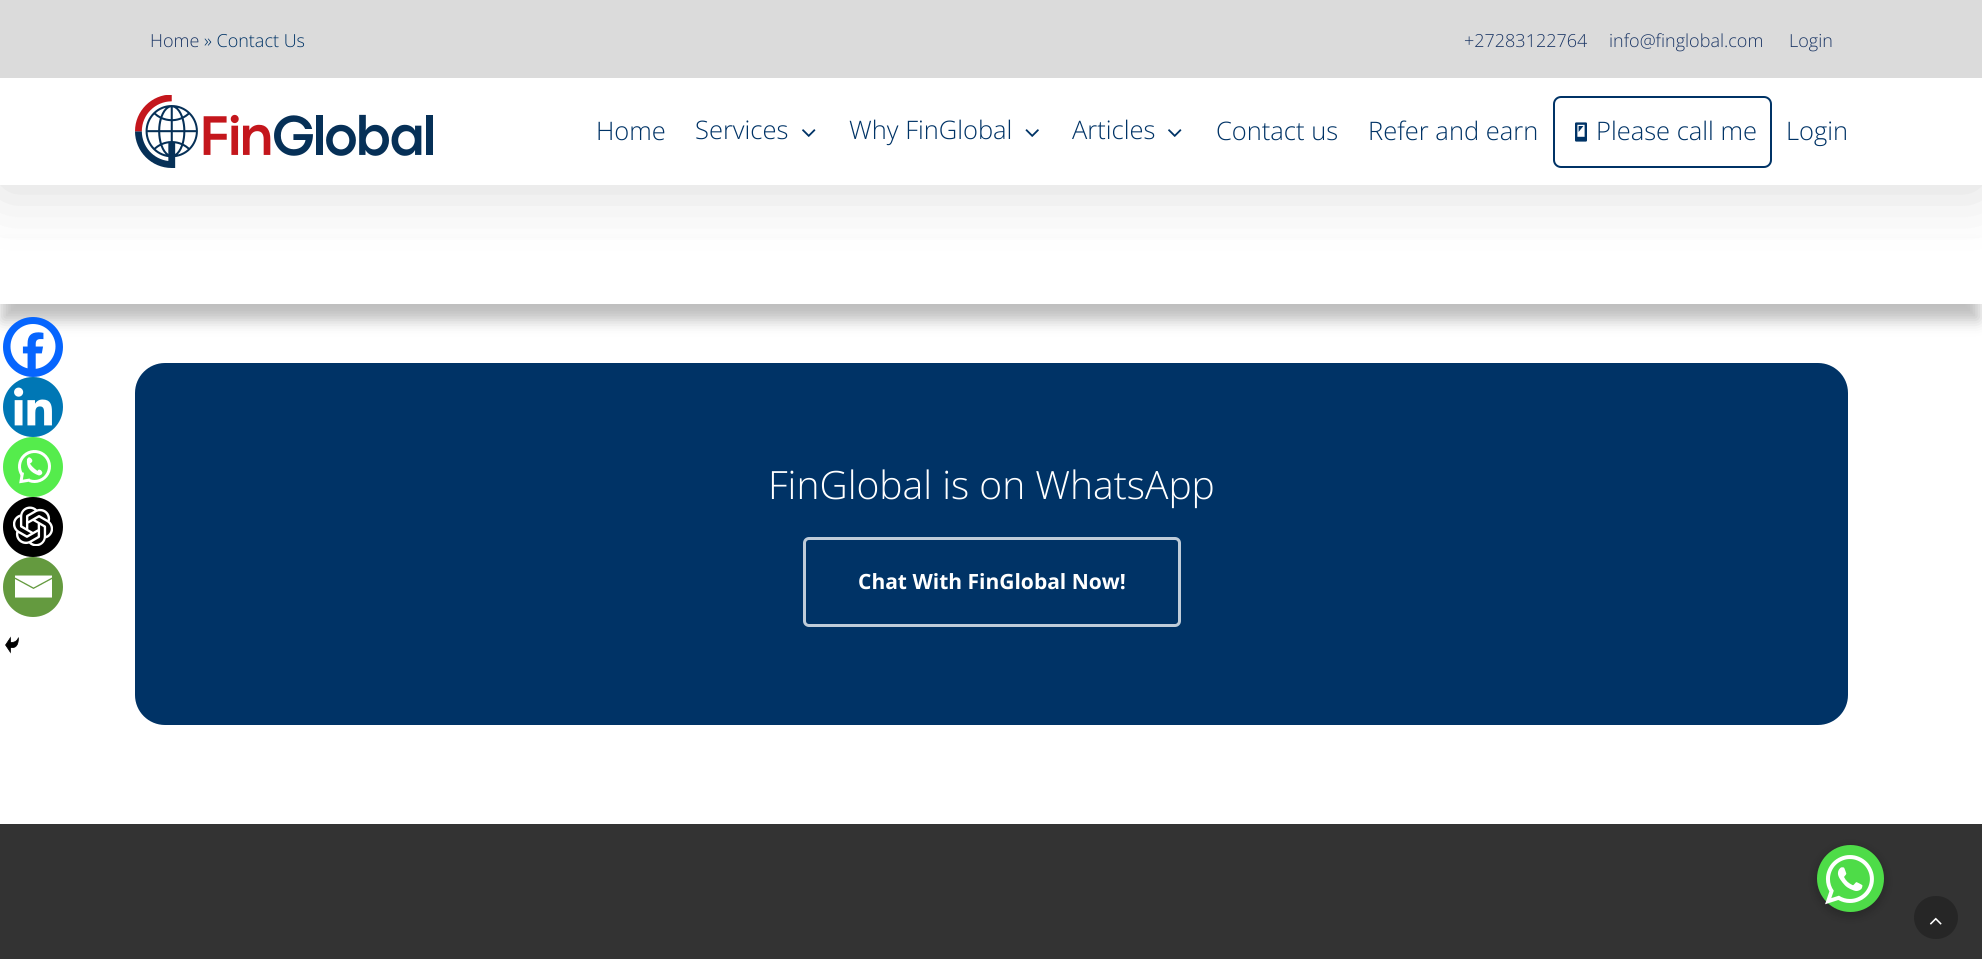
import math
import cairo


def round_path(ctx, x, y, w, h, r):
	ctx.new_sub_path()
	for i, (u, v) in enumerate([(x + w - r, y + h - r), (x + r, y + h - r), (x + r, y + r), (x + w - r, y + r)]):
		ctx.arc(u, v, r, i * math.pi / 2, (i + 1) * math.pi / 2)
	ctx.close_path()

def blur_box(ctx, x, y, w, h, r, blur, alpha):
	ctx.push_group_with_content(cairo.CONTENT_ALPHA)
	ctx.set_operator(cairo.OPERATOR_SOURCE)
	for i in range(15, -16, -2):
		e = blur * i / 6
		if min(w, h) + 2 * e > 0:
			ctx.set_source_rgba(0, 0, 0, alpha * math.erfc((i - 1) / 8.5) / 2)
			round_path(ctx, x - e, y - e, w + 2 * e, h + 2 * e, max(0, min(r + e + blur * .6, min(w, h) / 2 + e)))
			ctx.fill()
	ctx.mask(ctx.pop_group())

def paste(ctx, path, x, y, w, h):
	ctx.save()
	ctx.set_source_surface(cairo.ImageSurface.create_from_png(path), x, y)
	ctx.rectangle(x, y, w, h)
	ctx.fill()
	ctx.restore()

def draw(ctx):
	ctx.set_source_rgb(1, 1, 1)
	ctx.paint()
	ctx.set_source_rgb(0.541, 0.541, 0.541)
	blur_box(ctx, 2, 251, 1977, 69, 0, 7.5, 0.56)
	ctx.set_source_rgb(1, 1, 1)
	ctx.rectangle(0, 238, 1982, 66)
	ctx.fill()
	ctx.set_source_rgb(0, 0, 0)
	blur_box(ctx, 0, 5, 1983, 184, 0, 34, 0.15)
	ctx.set_source_rgb(1, 1, 1)
	ctx.rectangle(0, 78, 1982, 107)
	ctx.fill()
	ctx.set_source_rgb(0.859, 0.859, 0.859)
	ctx.rectangle(0, 0, 1982, 78)
	ctx.fill()
	ctx.select_font_face('Open Sans Light')
	ctx.set_font_size(18)
	ctx.set_source_rgb(0.106, 0.212, 0.396)
	ctx.move_to(150, 47)
	ctx.show_text('Home')
	ctx.set_source_rgb(0, 0.2, 0.4)
	ctx.move_to(204, 47)
	ctx.show_text('» Contact Us')
	ctx.set_source_rgb(0.106, 0.212, 0.396)
	for x, y, s in [
		(1464, 47, '+27283122764'),
		(1609, 47, 'info@finglobal.com'),
		(1789, 47, 'Login'),
	]:
		ctx.move_to(x, y)
		ctx.show_text(s)
	paste(ctx, 'media/1.png', 135, 95, 298, 73)
	ctx.set_font_size(25.5)
	ctx.set_source_rgb(0, 0.2, 0.4)
	ctx.move_to(596, 140)
	ctx.show_text('Home')
	ctx.move_to(695, 139)
	ctx.show_text('Services')
	paste(ctx, 'media/2.png', 802, 129, 14, 8)
	ctx.move_to(849, 139)
	ctx.show_text('Why FinGlobal')
	paste(ctx, 'media/3.png', 1025, 129, 14, 8)
	ctx.move_to(1072, 139)
	ctx.show_text('Articles')
	paste(ctx, 'media/2.png', 1168, 129, 14, 8)
	ctx.move_to(1216, 140)
	ctx.show_text('Contact us')
	ctx.move_to(1368, 140)
	ctx.show_text('Refer and earn')
	round_path(ctx, 1554, 97, 217, 70, 7)
	ctx.stroke()
	paste(ctx, 'media/4.png', 1575, 122, 12, 20)
	ctx.move_to(1596, 140)
	ctx.show_text('Please call me')
	ctx.move_to(1786, 140)
	ctx.show_text('Login')
	ctx.set_source_rgb(0.027, 0.396, 0.996)
	ctx.new_path()
	ctx.arc(33, 347, 30, 0, 2 * math.pi)
	ctx.fill()
	paste(ctx, 'media/5.png', 10, 324, 46, 45)
	ctx.set_source_rgb(0, 0.467, 0.71)
	ctx.arc(33, 407, 30, 0, 2 * math.pi)
	ctx.fill()
	paste(ctx, 'media/6.png', 14, 387, 38, 39)
	ctx.set_source_rgb(0.333, 0.922, 0.298)
	ctx.arc(33, 467, 30, 0, 2 * math.pi)
	ctx.fill()
	paste(ctx, 'media/7.png', 18, 450, 33, 34)
	ctx.set_source_rgb(0, 0, 0)
	ctx.arc(33, 527, 30, 0, 2 * math.pi)
	ctx.fill()
	paste(ctx, 'media/8.png', 13, 506, 40, 40)
	ctx.set_source_rgb(0.392, 0.604, 0.247)
	ctx.arc(33, 587, 30, 0, 2 * math.pi)
	ctx.fill()
	ctx.set_source_rgb(1, 1, 1)
	ctx.new_path()
	ctx.move_to(13.5, 575.5)
	ctx.line_to(52, 575.5)
	ctx.line_to(52, 577.5)
	ctx.line_to(33.5, 587.5)
	ctx.line_to(15, 577.5)
	ctx.line_to(15, 575.5)
	ctx.move_to(15, 579)
	ctx.line_to(33.5, 589)
	ctx.line_to(52, 579)
	ctx.line_to(52, 597.5)
	ctx.line_to(15, 597.5)
	ctx.line_to(15, 579)
	ctx.fill()
	paste(ctx, 'media/9.png', 5, 636, 14, 18)
	ctx.set_source_rgb(0, 0.2, 0.4)
	round_path(ctx, 135, 363, 1713, 362, 30)
	ctx.fill()
	ctx.set_font_size(39)
	ctx.set_source_rgb(1, 1, 1)
	ctx.move_to(768, 499)
	ctx.show_text('FinGlobal is on WhatsApp')
	round_path(ctx, 804.5, 538.5, 375, 87, 4.5)
	ctx.set_source_rgb(0.749, 0.8, 0.851)
	ctx.set_line_width(3)
	ctx.stroke()
	ctx.select_font_face('Open Sans', cairo.FONT_SLANT_NORMAL, cairo.FONT_WEIGHT_BOLD)
	ctx.set_font_size(21)
	ctx.set_source_rgb(1, 1, 1)
	ctx.move_to(858, 589)
	ctx.show_text('Chat With FinGlobal Now!')
	ctx.set_source_rgb(0.2, 0.2, 0.2)
	ctx.rectangle(0, 824, 1982, 135)
	ctx.fill()
	ctx.set_source_rgb(0.149, 0.149, 0.149)
	round_path(ctx, 1914, 896, 44, 43, 21.5)
	ctx.fill()
	paste(ctx, 'media/10.png', 1929, 917, 13, 8)
	ctx.set_source_rgb(0, 0, 0)
	blur_box(ctx, 1815, 846, 71, 71, 35.5, 4.5, 0.2)
	ctx.set_source_rgb(0.306, 0.863, 0.282)
	ctx.arc(1850.5, 878.5, 33.5, 0, 2 * math.pi)
	ctx.fill()
	paste(ctx, 'media/11.png', 1825, 855, 49, 50)


surface = cairo.ImageSurface(cairo.FORMAT_RGB24, 1982, 959)
ctx = cairo.Context(surface)
options = cairo.FontOptions()
options.set_hint_metrics(cairo.HINT_METRICS_OFF)
options.set_hint_style(cairo.HINT_STYLE_NONE)
ctx.set_font_options(options)
ctx.set_miter_limit(4)
draw(ctx)
surface.write_to_png('image.png')
